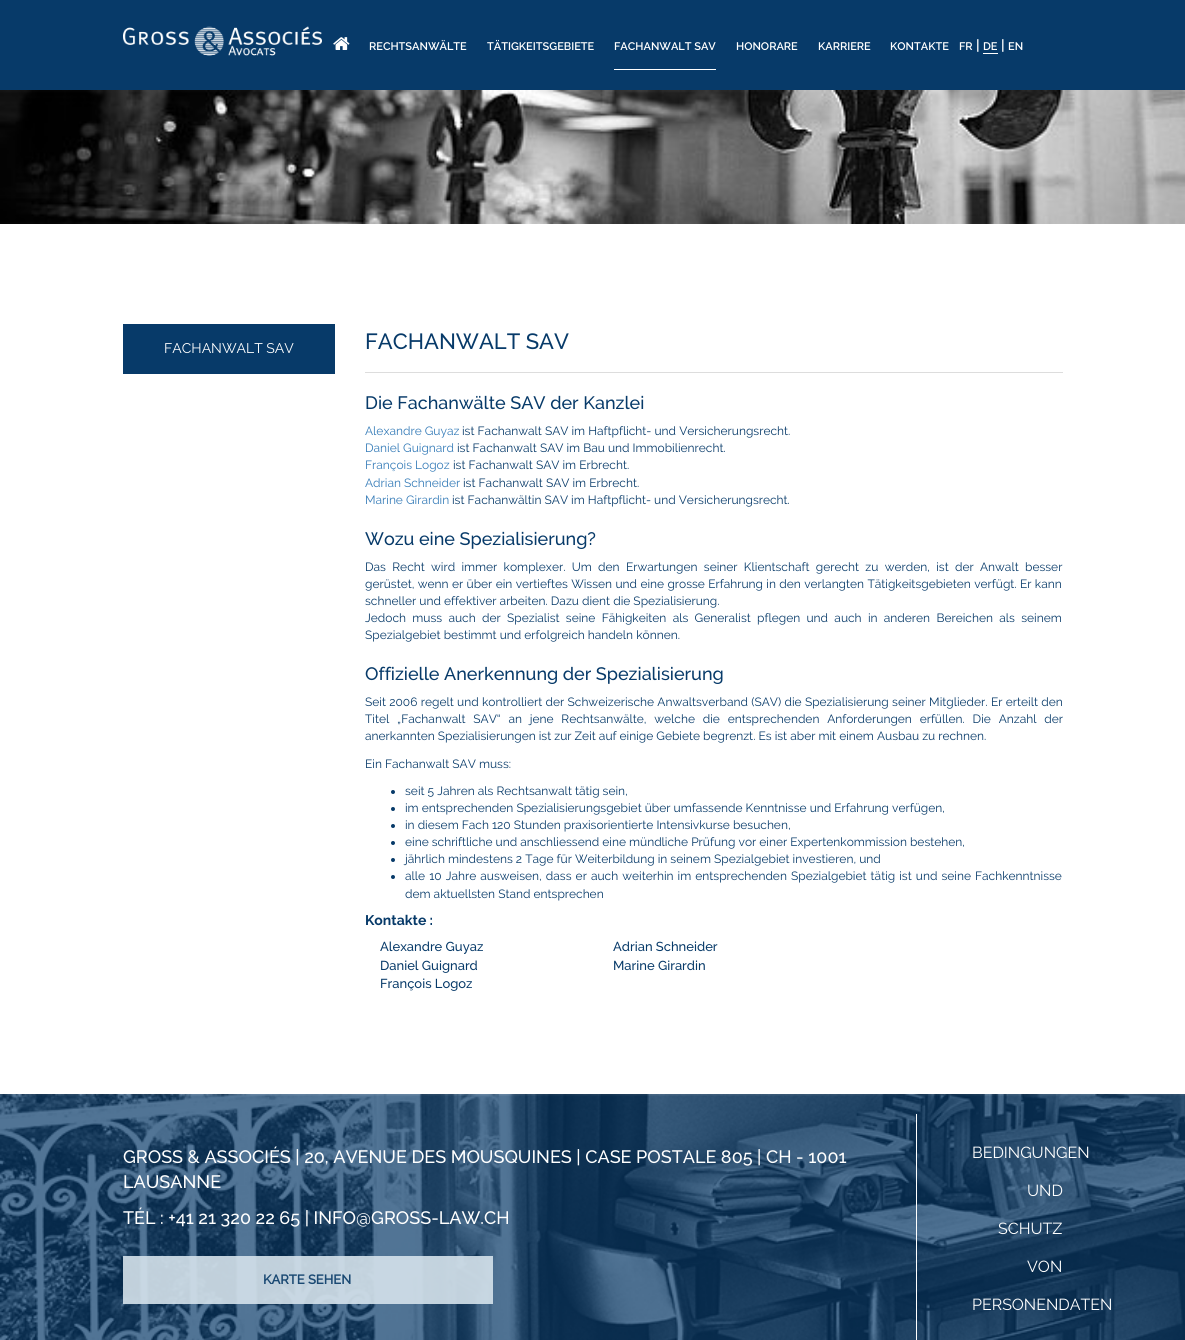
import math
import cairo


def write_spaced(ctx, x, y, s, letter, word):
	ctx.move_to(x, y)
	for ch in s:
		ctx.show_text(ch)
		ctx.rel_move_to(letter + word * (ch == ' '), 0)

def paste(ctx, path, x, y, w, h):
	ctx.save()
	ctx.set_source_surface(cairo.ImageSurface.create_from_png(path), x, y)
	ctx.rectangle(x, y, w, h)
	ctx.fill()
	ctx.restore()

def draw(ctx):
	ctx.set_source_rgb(1, 1, 1)
	ctx.paint()
	ctx.set_source_rgb(0.031, 0.227, 0.412)
	ctx.rectangle(0, 0, 1185, 90)
	ctx.fill()
	paste(ctx, 'media/1.png', 123, 26, 199, 30)
	paste(ctx, 'media/2.png', 333, 37, 17, 13)
	ctx.select_font_face('Raleway SemiBold')
	ctx.set_font_size(11)
	ctx.set_source_rgb(1, 1, 1)
	ctx.move_to(369, 50)
	ctx.show_text('RECHTSANWÄLTE')
	ctx.move_to(487, 50)
	ctx.show_text('TÄTIGKEITSGEBIETE')
	ctx.rectangle(614, 69, 102, 1)
	ctx.fill()
	for x, y, s in [
		(614, 50, 'FACHANWALT SAV'),
		(736, 50, 'HONORARE'),
		(818, 50, 'KARRIERE'),
		(890, 50, 'KONTAKTE'),
		(959, 50, 'FR'),
	]:
		ctx.move_to(x, y)
		ctx.show_text(s)
	ctx.set_font_size(14)
	ctx.move_to(976, 50)
	ctx.show_text('|')
	ctx.set_font_size(11)
	ctx.move_to(983, 50)
	ctx.show_text('DE')
	ctx.rectangle(983, 53, 15, 1)
	ctx.fill()
	ctx.set_font_size(14)
	ctx.move_to(1001, 50)
	ctx.show_text('|')
	ctx.set_font_size(11)
	ctx.move_to(1008, 50)
	ctx.show_text('EN')
	paste(ctx, 'media/3.png', 0, 90, 1185, 134)
	ctx.set_source_rgb(0.031, 0.227, 0.412)
	ctx.rectangle(123, 324, 212, 50)
	ctx.fill()
	ctx.select_font_face('Raleway')
	ctx.set_font_size(14)
	ctx.set_source_rgb(1, 1, 1)
	ctx.move_to(164, 353)
	ctx.show_text('FACHANWALT SAV')
	ctx.set_source_rgb(0.867, 0.867, 0.867)
	ctx.rectangle(365, 372, 698, 1)
	ctx.fill()
	ctx.select_font_face('Raleway Medium')
	ctx.set_font_size(22)
	ctx.set_source_rgb(0.031, 0.227, 0.412)
	ctx.move_to(365, 349)
	ctx.show_text('FACHANWALT SAV')
	ctx.set_font_size(18)
	ctx.move_to(365, 409)
	ctx.show_text('Die Fachanwälte SAV der Kanzlei')
	ctx.select_font_face('Raleway')
	ctx.set_font_size(12)
	ctx.set_source_rgb(0.2, 0.478, 0.718)
	ctx.move_to(365, 435)
	ctx.show_text('Alexandre Guyaz')
	ctx.set_source_rgb(0.031, 0.227, 0.412)
	ctx.move_to(462, 435)
	ctx.show_text('ist Fachanwalt SAV im Haftpflicht- und Versicherungsrecht.')
	ctx.set_source_rgb(0.2, 0.478, 0.718)
	ctx.move_to(365, 452)
	ctx.show_text('Daniel Guignard')
	ctx.set_source_rgb(0.031, 0.227, 0.412)
	ctx.move_to(457, 452)
	ctx.show_text('ist Fachanwalt SAV im Bau und Immobilienrecht.')
	ctx.set_source_rgb(0.2, 0.478, 0.718)
	ctx.move_to(365, 469)
	ctx.show_text('François Logoz')
	ctx.set_source_rgb(0.031, 0.227, 0.412)
	ctx.move_to(453, 469)
	ctx.show_text('ist Fachanwalt SAV im Erbrecht.')
	ctx.set_source_rgb(0.2, 0.478, 0.718)
	ctx.move_to(365, 487)
	ctx.show_text('Adrian Schneider')
	ctx.set_source_rgb(0.031, 0.227, 0.412)
	ctx.move_to(463, 487)
	ctx.show_text('ist Fachanwalt SAV im Erbrecht.')
	ctx.set_source_rgb(0.2, 0.478, 0.718)
	ctx.move_to(365, 504)
	ctx.show_text('Marine Girardin')
	ctx.set_source_rgb(0.031, 0.227, 0.412)
	ctx.move_to(452, 504)
	ctx.show_text('ist Fachanwältin SAV im Haftpflicht- und Versicherungsrecht.')
	ctx.select_font_face('Raleway Medium')
	ctx.set_font_size(18)
	ctx.move_to(365, 545)
	ctx.show_text('Wozu eine Spezialisierung?')
	ctx.select_font_face('Raleway')
	ctx.set_font_size(12)
	write_spaced(ctx, 365, 571, 'Das Recht wird immer komplexer. Um den Erwartungen seiner Klientschaft gerecht zu werden, ist der Anwalt besser', 0, 3.25)
	write_spaced(ctx, 365, 588, 'gerüstet, wenn er über ein vertieftes Wissen und eine grosse Erfahrung in den verlangten Tätigkeitsgebieten verfügt. Er kann', 0, 0.3)
	ctx.move_to(365, 605)
	ctx.show_text('schneller und effektiver arbeiten. Dazu dient die Spezialisierung.')
	write_spaced(ctx, 365, 622, 'Jedoch muss auch der Spezialist seine Fähigkeiten als Generalist pflegen und auch in anderen Bereichen als seinem', 0, 3.25)
	ctx.move_to(365, 639)
	ctx.show_text('Spezialgebiet bestimmt und erfolgreich handeln können.')
	ctx.select_font_face('Raleway Medium')
	ctx.set_font_size(18)
	ctx.move_to(365, 680)
	ctx.show_text('Offizielle Anerkennung der Spezialisierung')
	ctx.select_font_face('Raleway')
	ctx.set_font_size(12)
	write_spaced(ctx, 365, 706, 'Seit 2006 regelt und kontrolliert der Schweizerische Anwaltsverband (SAV) die Spezialisierung seiner Mitglieder. Er erteilt den', 0, 0.25)
	write_spaced(ctx, 365, 723, 'Titel „Fachanwalt SAV“ an jene Rechtsanwälte, welche die entsprechenden Anforderungen erfüllen. Die Anzahl der', 0, 4.75)
	ctx.move_to(365, 740)
	ctx.show_text('anerkannten Spezialisierungen ist zur Zeit auf einige Gebiete begrenzt. Es ist aber mit einem Ausbau zu rechnen.')
	ctx.move_to(365, 768)
	ctx.show_text('Ein Fachanwalt SAV muss:')
	ctx.new_path()
	ctx.arc(393, 792, 2, 0, 2 * math.pi)
	ctx.fill()
	ctx.move_to(405, 795)
	ctx.show_text('seit 5 Jahren als Rechtsanwalt tätig sein,')
	ctx.new_path()
	ctx.arc(393, 809, 2, 0, 2 * math.pi)
	ctx.fill()
	ctx.move_to(405, 812)
	ctx.show_text('im entsprechenden Spezialisierungsgebiet über umfassende Kenntnisse und Erfahrung verfügen,')
	ctx.new_path()
	ctx.arc(393, 826, 2, 0, 2 * math.pi)
	ctx.fill()
	ctx.move_to(405, 829)
	ctx.show_text('in diesem Fach 120 Stunden praxisorientierte Intensivkurse besuchen,')
	ctx.new_path()
	ctx.arc(393, 843, 2, 0, 2 * math.pi)
	ctx.fill()
	ctx.move_to(405, 846)
	ctx.show_text('eine schriftliche und anschliessend eine mündliche Prüfung vor einer Expertenkommission bestehen,')
	ctx.new_path()
	ctx.arc(393, 860, 2, 0, 2 * math.pi)
	ctx.fill()
	ctx.move_to(405, 863)
	ctx.show_text('jährlich mindestens 2 Tage für Weiterbildung in seinem Spezialgebiet investieren, und')
	ctx.new_path()
	ctx.arc(393, 877, 2, 0, 2 * math.pi)
	ctx.fill()
	write_spaced(ctx, 405, 880, 'alle 10 Jahre ausweisen, dass er auch weiterhin im entsprechenden Spezialgebiet tätig ist und seine Fachkenntnisse', 0, 1)
	ctx.move_to(405, 898)
	ctx.show_text('dem aktuellsten Stand entsprechen')
	ctx.select_font_face('Raleway', cairo.FONT_SLANT_NORMAL, cairo.FONT_WEIGHT_BOLD)
	ctx.set_font_size(14)
	ctx.move_to(365, 925)
	ctx.show_text('Kontakte :')
	ctx.select_font_face('Raleway Medium')
	ctx.set_font_size(13)
	for x, y, s in [
		(380, 951, 'Alexandre Guyaz'),
		(380, 970, 'Daniel Guignard'),
		(380, 988, 'François Logoz'),
		(613, 951, 'Adrian Schneider'),
		(613, 970, 'Marine Girardin'),
	]:
		ctx.move_to(x, y)
		ctx.show_text(s)
	paste(ctx, 'media/4.png', 0, 1094, 1185, 246)
	ctx.set_font_size(18)
	ctx.set_source_rgb(1, 1, 1)
	for x, y, s in [
		(123, 1163, 'GROSS & ASSOCIÉS | 20, AVENUE DES MOUSQUINES | CASE POSTALE 805 | CH - 1001'),
		(123, 1188, 'LAUSANNE'),
		(123, 1224, 'TÉL : +41 21 320 22 65 | INFO@GROSS-LAW.CH'),
	]:
		ctx.move_to(x, y)
		ctx.show_text(s)
	ctx.set_source_rgba(0.835, 0.886, 0.922, 0.9)
	ctx.rectangle(123, 1256, 370, 48)
	ctx.fill()
	ctx.select_font_face('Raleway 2', cairo.FONT_SLANT_NORMAL, cairo.FONT_WEIGHT_BOLD)
	ctx.set_font_size(13)
	ctx.set_source_rgb(0.102, 0.286, 0.451)
	ctx.move_to(263, 1284)
	ctx.show_text('KARTE SEHEN')
	ctx.set_source_rgb(1, 1, 1)
	ctx.rectangle(916, 1114, 1, 226)
	ctx.fill()
	ctx.select_font_face('Raleway')
	ctx.set_font_size(16)
	for x, y, s in [
		(972, 1158, 'BEDINGUNGEN'),
		(1027, 1196, 'UND'),
		(998, 1234, 'SCHUTZ'),
		(1027, 1272, 'VON'),
		(972, 1310, 'PERSONENDATEN'),
	]:
		ctx.move_to(x, y)
		ctx.show_text(s)


surface = cairo.ImageSurface(cairo.FORMAT_RGB24, 1185, 1340)
ctx = cairo.Context(surface)
options = cairo.FontOptions()
options.set_hint_metrics(cairo.HINT_METRICS_OFF)
options.set_hint_style(cairo.HINT_STYLE_NONE)
ctx.set_font_options(options)
ctx.set_miter_limit(4)
draw(ctx)
surface.write_to_png('image.png')
